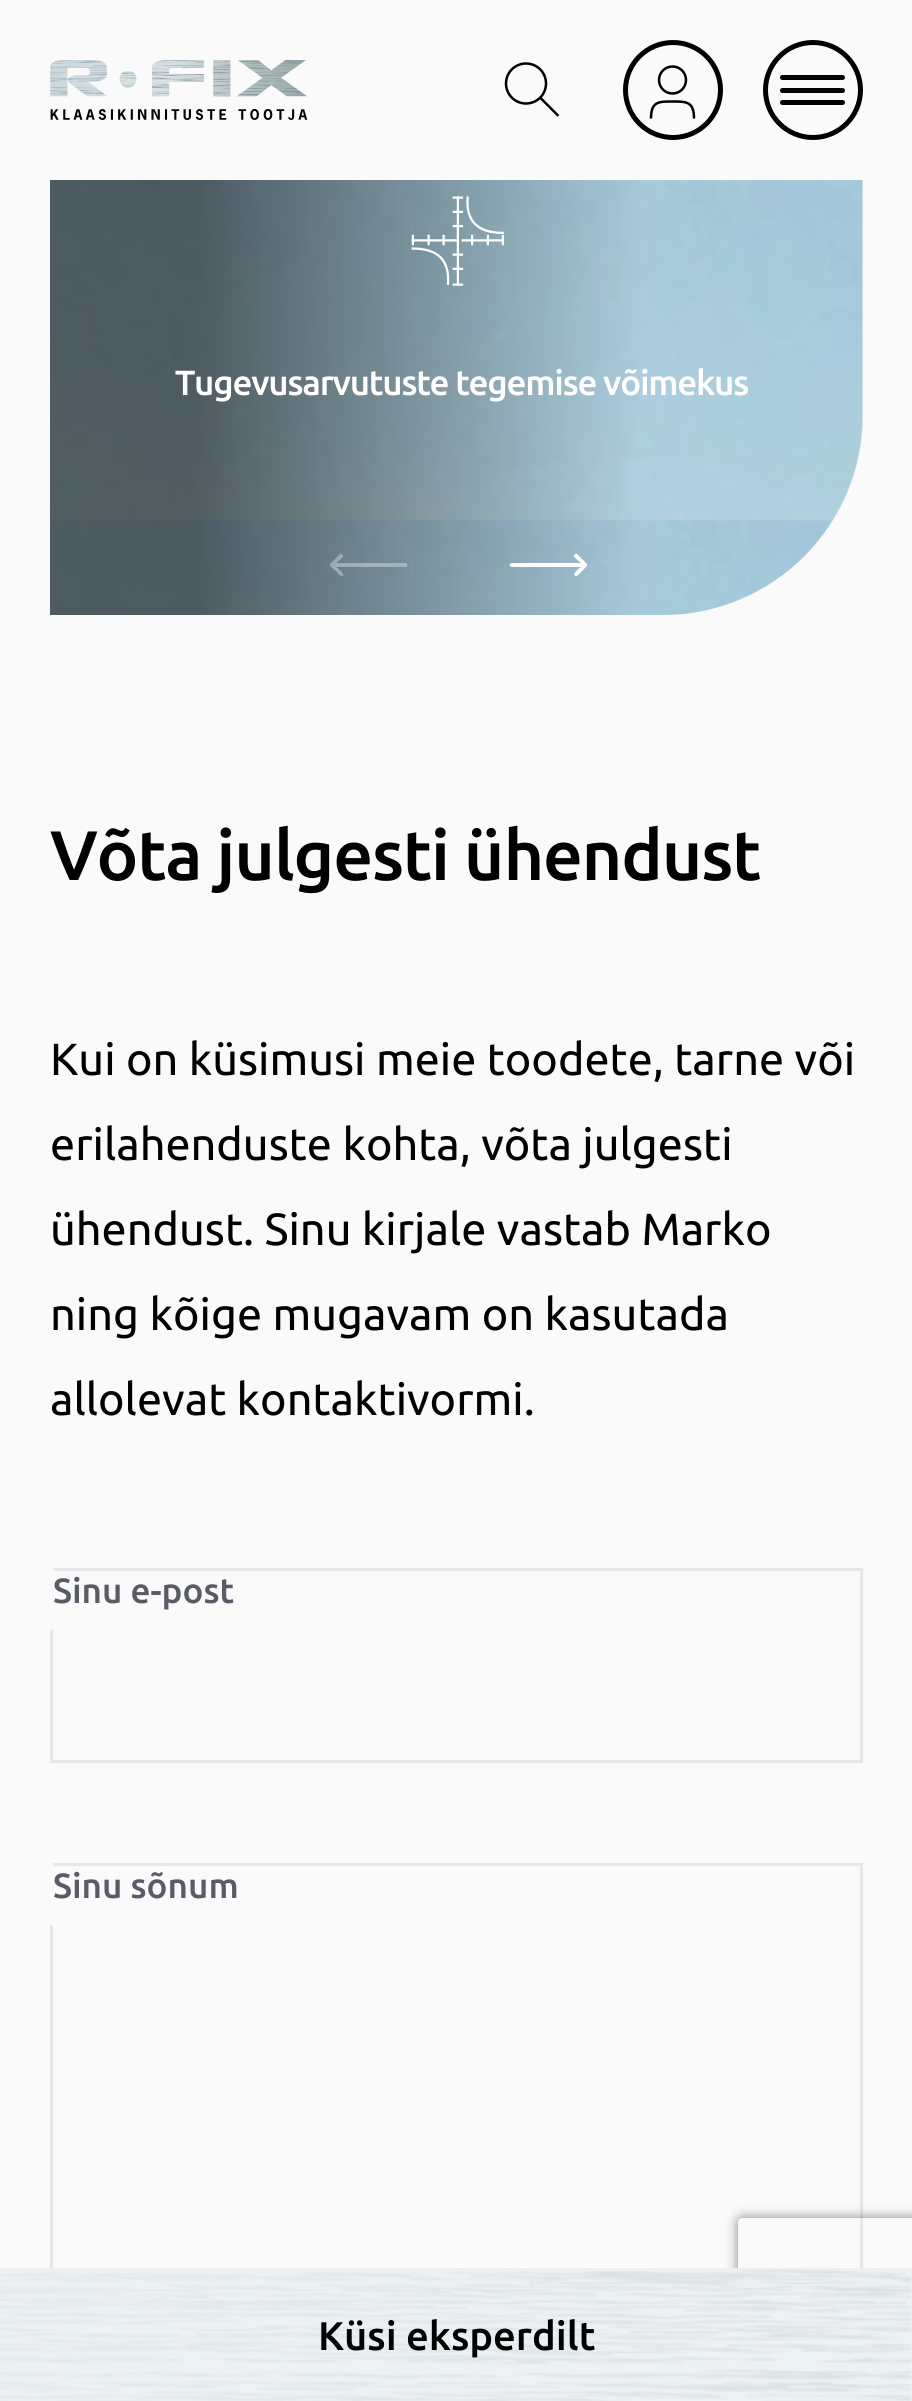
import math
import cairo


def write_spaced(ctx, x, y, s, letter, word):
	ctx.move_to(x, y)
	for ch in s:
		ctx.show_text(ch)
		ctx.rel_move_to(letter + word * (ch == ' '), 0)

def round_path(ctx, x, y, w, h, r):
	ctx.new_sub_path()
	for i, (u, v) in enumerate([(x + w - r, y + h - r), (x + r, y + h - r), (x + r, y + r), (x + w - r, y + r)]):
		ctx.arc(u, v, r, i * math.pi / 2, (i + 1) * math.pi / 2)
	ctx.close_path()

def blur_box(ctx, x, y, w, h, r, blur, alpha):
	ctx.push_group_with_content(cairo.CONTENT_ALPHA)
	ctx.set_operator(cairo.OPERATOR_SOURCE)
	for i in range(15, -16, -2):
		e = blur * i / 6
		if min(w, h) + 2 * e > 0:
			ctx.set_source_rgba(0, 0, 0, alpha * math.erfc((i - 1) / 8.5) / 2)
			round_path(ctx, x - e, y - e, w + 2 * e, h + 2 * e, max(0, min(r + e + blur * .6, min(w, h) / 2 + e)))
			ctx.fill()
	ctx.mask(ctx.pop_group())

def paste(ctx, path, x, y, w, h):
	ctx.save()
	ctx.set_source_surface(cairo.ImageSurface.create_from_png(path), x, y)
	ctx.rectangle(x, y, w, h)
	ctx.fill()
	ctx.restore()

def draw(ctx):
	ctx.set_source_rgb(0.98, 0.98, 0.98)
	ctx.paint()
	paste(ctx, 'media/1.png', 50, 60, 258, 60)
	ctx.arc(526, 83.5, 20, 0, 2 * math.pi)
	ctx.set_source_rgb(0, 0, 0)
	ctx.set_line_width(2.5)
	ctx.stroke()
	ctx.new_path()
	ctx.move_to(541, 98.5)
	ctx.line_to(557.5, 115)
	ctx.set_line_cap(cairo.LINE_CAP_SQUARE)
	ctx.stroke()
	ctx.arc(673, 90, 47.5, 0, 2 * math.pi)
	ctx.set_line_width(5)
	ctx.set_line_cap(cairo.LINE_CAP_BUTT)
	ctx.stroke()
	ctx.new_path()
	ctx.move_to(651, 118.5)
	ctx.curve_to(651, 101.5, 658.5, 101.5, 672.5, 101.5)
	ctx.curve_to(686.5, 101.5, 694, 101.5, 694, 118.5)
	ctx.set_line_width(2.5)
	ctx.stroke()
	ctx.arc(672.5, 80, 13.5, 0, 2 * math.pi)
	ctx.stroke()
	ctx.arc(813, 90, 47.5, 0, 2 * math.pi)
	ctx.set_line_width(5)
	ctx.stroke()
	round_path(ctx, 780, 75, 65, 5, 2.5)
	ctx.fill()
	round_path(ctx, 780, 88, 65, 5, 2.5)
	ctx.fill()
	round_path(ctx, 780, 100, 65, 5, 2.5)
	ctx.fill()
	paste(ctx, 'media/2.png', 50, 180, 813, 435)
	gradient = cairo.LinearGradient(50, 398, 863, 398)
	gradient.add_color_stop_rgba(0.18, 0, 0, 0, 0.6)
	gradient.add_color_stop_rgba(0.73, 0, 0, 0, 0.1)
	ctx.set_source(gradient)
	ctx.new_path()
	ctx.move_to(50, 180)
	ctx.line_to(863, 180)
	ctx.line_to(863, 415)
	ctx.curve_to(863, 525.5, 773.5, 615, 663, 615)
	ctx.line_to(50, 615)
	ctx.close_path()
	ctx.fill()
	paste(ctx, 'media/3.png', 411, 196, 93, 90)
	ctx.select_font_face('Ubuntu Medium')
	ctx.set_font_size(35)
	ctx.set_source_rgb(1, 1, 1)
	write_spaced(ctx, 175, 395, 'Tugevusarvutuste tegemise võimekus', -1.25, 0)
	ctx.set_source_rgba(1, 1, 1, 0.35)
	ctx.new_path()
	ctx.move_to(340, 554)
	ctx.line_to(332, 562)
	ctx.curve_to(329, 565, 329, 565, 332, 568)
	ctx.line_to(337, 572)
	ctx.curve_to(338, 574, 340, 576, 342, 576)
	ctx.curve_to(347, 575, 336, 567, 336, 567)
	ctx.line_to(406, 567)
	ctx.curve_to(407, 567, 408, 565, 407, 564)
	ctx.line_to(406, 563)
	ctx.line_to(336, 563)
	ctx.line_to(343, 557)
	ctx.curve_to(344, 555, 341, 553, 340, 554)
	ctx.close_path()
	ctx.fill()
	ctx.set_source_rgb(1, 1, 1)
	ctx.new_path()
	ctx.move_to(577, 554)
	ctx.line_to(585, 562)
	ctx.curve_to(588, 565, 588, 565, 585, 568)
	ctx.line_to(581, 572)
	ctx.curve_to(579, 574, 578, 576, 576, 576)
	ctx.curve_to(570, 575, 581, 567, 581, 567)
	ctx.line_to(512, 567)
	ctx.curve_to(510, 567, 509, 565, 510, 564)
	ctx.line_to(511, 563)
	ctx.line_to(581, 563)
	ctx.line_to(574, 557)
	ctx.curve_to(573, 555, 576, 553, 577, 554)
	ctx.close_path()
	ctx.fill()
	ctx.set_font_size(70)
	ctx.set_source_rgb(0, 0, 0)
	write_spaced(ctx, 50, 880, 'Võta julgesti ühendust', -1.25, 0)
	ctx.select_font_face('Ubuntu')
	ctx.set_font_size(45)
	for x, y, s in [
		(50, 1075, 'Kui on küsimusi meie toodete, tarne või'),
		(50, 1160, 'erilahenduste kohta, võta julgesti'),
		(50, 1245, 'ühendust. Sinu kirjale vastab Marko'),
		(50, 1330, 'ning kõige mugavam on kasutada'),
		(50, 1415, 'allolevat kontaktivormi.'),
	]:
		ctx.move_to(x, y)
		ctx.show_text(s)
	ctx.rectangle(51.5, 1569.5, 810, 192)
	ctx.set_source_rgb(0.902, 0.906, 0.914)
	ctx.set_line_width(3)
	ctx.stroke()
	ctx.set_source_rgb(0.98, 0.98, 0.98)
	ctx.rectangle(50, 1568, 3, 62)
	ctx.fill()
	ctx.select_font_face('Ubuntu Medium')
	ctx.set_font_size(35)
	ctx.set_source_rgb(0.349, 0.361, 0.4)
	ctx.move_to(53, 1603)
	ctx.show_text('Sinu e-post')
	ctx.rectangle(51.5, 1864.5, 810, 447)
	ctx.set_source_rgb(0.902, 0.906, 0.914)
	ctx.stroke()
	ctx.set_source_rgb(0.98, 0.98, 0.98)
	ctx.rectangle(50, 1863, 3, 62)
	ctx.fill()
	ctx.set_source_rgb(0.349, 0.361, 0.4)
	ctx.move_to(53, 1898)
	ctx.show_text('Sinu sõnum')
	ctx.save()
	ctx.set_fill_rule(cairo.FILL_RULE_EVEN_ODD)
	ctx.new_path()
	ctx.move_to(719, 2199)
	ctx.line_to(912, 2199)
	ctx.line_to(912, 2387)
	ctx.line_to(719, 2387)
	ctx.close_path()
	ctx.move_to(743, 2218)
	ctx.line_to(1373, 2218)
	ctx.curve_to(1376, 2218, 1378, 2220, 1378, 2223)
	ctx.line_to(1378, 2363)
	ctx.curve_to(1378, 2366, 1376, 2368, 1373, 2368)
	ctx.line_to(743, 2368)
	ctx.curve_to(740, 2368, 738, 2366, 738, 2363)
	ctx.line_to(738, 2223)
	ctx.curve_to(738, 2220, 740, 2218, 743, 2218)
	ctx.close_path()
	ctx.clip()
	ctx.set_source_rgb(0.502, 0.502, 0.502)
	blur_box(ctx, 738, 2218, 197, 150, 5, 6, 1)
	ctx.restore()
	ctx.set_source_rgb(0.925, 0.945, 0.953)
	ctx.rectangle(0, 2268, 912, 133)
	ctx.fill()
	paste(ctx, 'media/4.png', 0, 2269, 912, 132)
	ctx.set_font_size(40)
	ctx.set_source_rgb(0, 0, 0)
	ctx.move_to(318, 2350)
	ctx.show_text('Küsi eksperdilt')


surface = cairo.ImageSurface(cairo.FORMAT_RGB24, 912, 2401)
ctx = cairo.Context(surface)
options = cairo.FontOptions()
options.set_hint_metrics(cairo.HINT_METRICS_OFF)
options.set_hint_style(cairo.HINT_STYLE_NONE)
ctx.set_font_options(options)
ctx.set_miter_limit(4)
draw(ctx)
surface.write_to_png('image.png')
